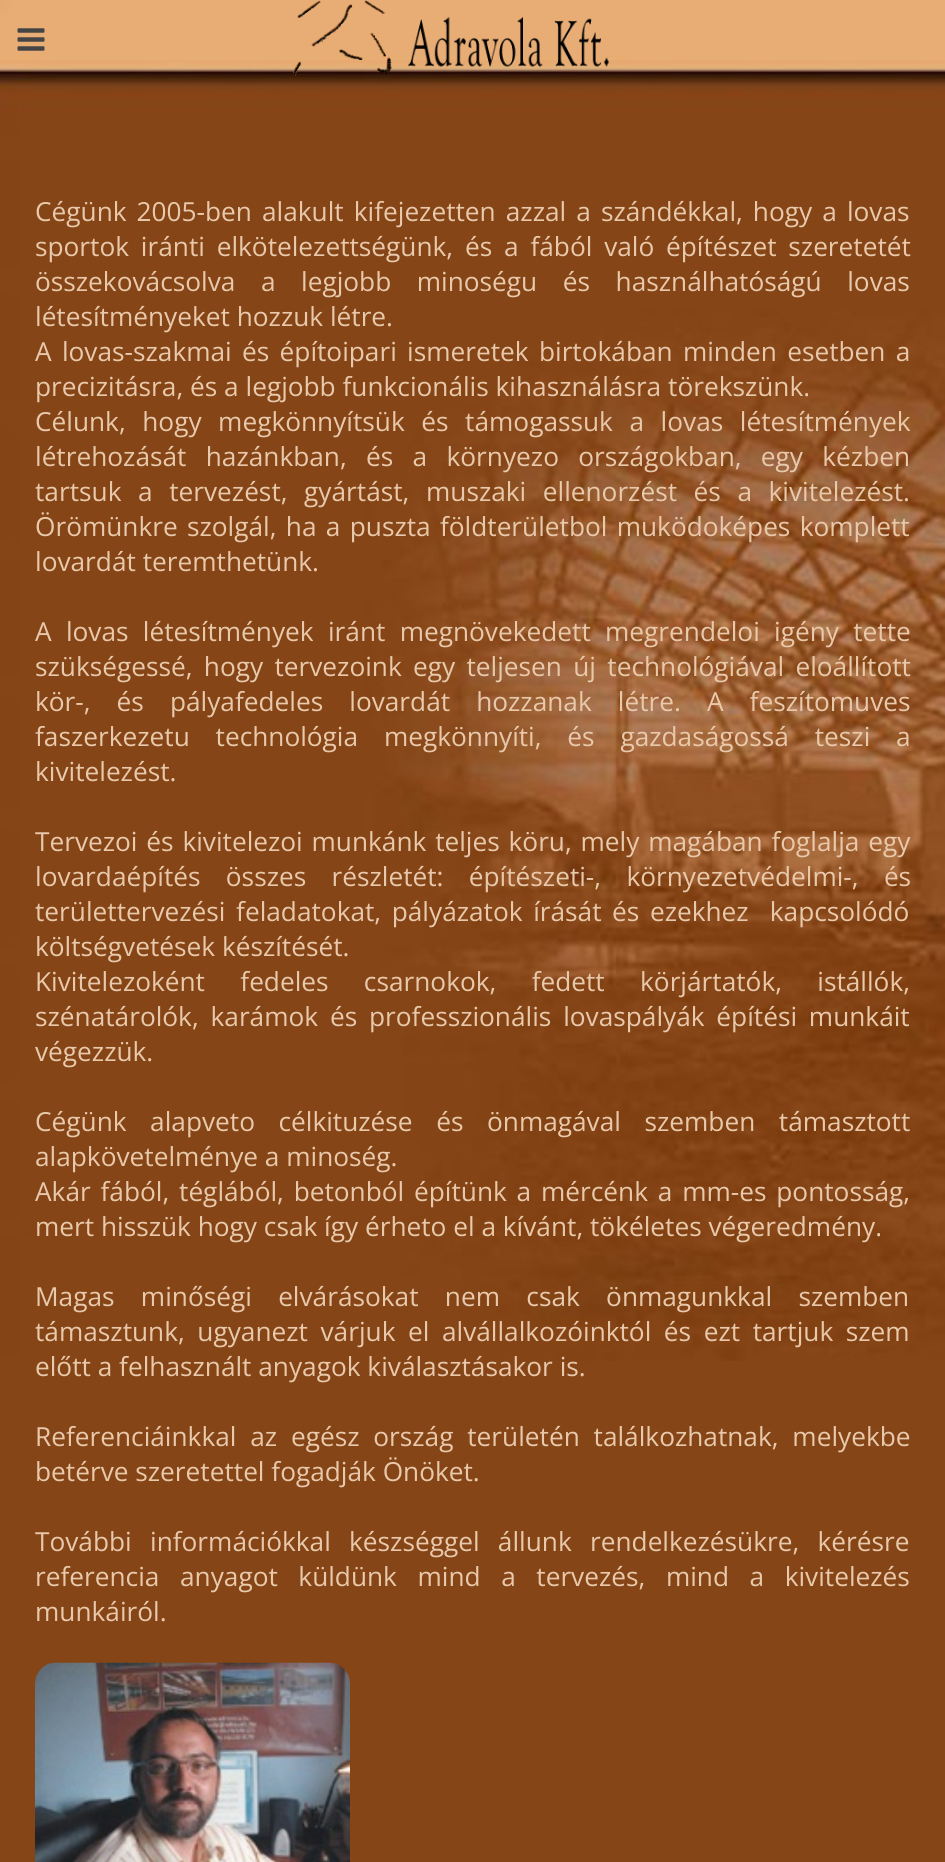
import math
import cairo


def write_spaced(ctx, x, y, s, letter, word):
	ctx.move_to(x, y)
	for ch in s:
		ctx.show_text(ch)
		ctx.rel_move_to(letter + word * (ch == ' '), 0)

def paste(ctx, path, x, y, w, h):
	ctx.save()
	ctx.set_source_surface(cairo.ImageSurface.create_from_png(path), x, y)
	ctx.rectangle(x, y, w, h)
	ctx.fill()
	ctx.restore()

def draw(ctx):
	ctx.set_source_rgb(0.522, 0.271, 0.09)
	ctx.paint()
	paste(ctx, 'media/1.png', 0, 0, 945, 1361)
	paste(ctx, 'media/2.png', 17, 28, 28, 23)
	paste(ctx, 'media/3.png', 293, 0, 317, 76)
	ctx.select_font_face('Open Sans')
	ctx.set_font_size(26.25)
	ctx.set_source_rgb(0.914, 0.788, 0.671)
	write_spaced(ctx, 35, 221, 'Cégünk 2005-ben alakult kifejezetten azzal a szándékkal, hogy a lovas', 0, 3.25)
	write_spaced(ctx, 35, 256, 'sportok iránti elkötelezettségünk, és a fából való építészet szeretetét', 0, 5)
	write_spaced(ctx, 35, 291, 'összekovácsolva a legjobb minoségu és használhatóságú lovas', 0, 18.75)
	ctx.move_to(35, 326)
	ctx.show_text('létesítményeket hozzuk létre.')
	write_spaced(ctx, 35, 361, 'A lovas-szakmai és építoipari ismeretek birtokában minden esetben a', 0, 3.5)
	ctx.move_to(35, 396)
	ctx.show_text('precizitásra, és a legjobb funkcionális kihasználásra törekszünk.')
	write_spaced(ctx, 35, 431, 'Célunk, hogy megkönnyítsük és támogassuk a lovas létesítmények', 0, 9.75)
	write_spaced(ctx, 35, 466, 'létrehozását hazánkban, és a környezo országokban, egy kézben', 0, 12.5)
	write_spaced(ctx, 35, 501, 'tartsuk a tervezést, gyártást, muszaki ellenorzést és a kivitelezést.', 0, 9.75)
	write_spaced(ctx, 35, 536, 'Örömünkre szolgál, ha a puszta földterületbol muködoképes komplett', 0, 2.5)
	ctx.move_to(35, 571)
	ctx.show_text('lovardát teremthetünk.')
	write_spaced(ctx, 35, 641, 'A lovas létesítmények iránt megnövekedett megrendeloi igény tette', 0, 7.5)
	write_spaced(ctx, 35, 676, 'szükségessé, hogy tervezoink egy teljesen új technológiával eloállított', 0, 4.5)
	write_spaced(ctx, 35, 711, 'kör-, és pályafedeles lovardát hozzanak létre. A feszítomuves', 0, 19.25)
	write_spaced(ctx, 35, 746, 'faszerkezetu technológia megkönnyíti, és gazdaságossá teszi a', 0, 19)
	ctx.move_to(35, 781)
	ctx.show_text('kivitelezést.')
	write_spaced(ctx, 35, 851, 'Tervezoi és kivitelezoi munkánk teljes köru, mely magában foglalja egy', 0, 2)
	write_spaced(ctx, 35, 886, 'lovardaépítés összes részletét: építészeti-, környezetvédelmi-, és', 0, 18.5)
	write_spaced(ctx, 35, 921, 'területtervezési feladatokat, pályázatok írását és ezekhez  kapcsolódó', 0, 3.75)
	ctx.move_to(35, 956)
	ctx.show_text('költségvetések készítését.')
	write_spaced(ctx, 35, 991, 'Kivitelezoként fedeles csarnokok, fedett körjártatók, istállók,', 0, 28.5)
	write_spaced(ctx, 35, 1026, 'szénatárolók, karámok és professzionális lovaspályák építési munkáit', 0, 5)
	ctx.move_to(35, 1061)
	ctx.show_text('végezzük.')
	write_spaced(ctx, 35, 1131, 'Cégünk alapveto célkituzése és önmagával szemben támasztott', 0, 16.75)
	ctx.move_to(35, 1166)
	ctx.show_text('alapkövetelménye a minoség.')
	write_spaced(ctx, 35, 1201, 'Akár fából, téglából, betonból építünk a mércénk a mm-es pontosság,', 0, 3)
	ctx.move_to(35, 1236)
	ctx.show_text('mert hisszük hogy csak így érheto el a kívánt, tökéletes végeredmény.')
	write_spaced(ctx, 35, 1306, 'Magas minőségi elvárásokat nem csak önmagunkkal szemben', 0, 19.5)
	write_spaced(ctx, 35, 1341, 'támasztunk, ugyanezt várjuk el alvállalkozóinktól és ezt tartjuk szem', 0, 5.75)
	ctx.move_to(35, 1376)
	ctx.show_text('előtt a felhasznált anyagok kiválasztásakor is.')
	write_spaced(ctx, 35, 1446, 'Referenciáinkkal az egész ország területén találkozhatnak, melyekbe', 0, 7)
	ctx.move_to(35, 1481)
	ctx.show_text('betérve szeretettel fogadják Önöket.')
	write_spaced(ctx, 35, 1551, 'További információkkal készséggel állunk rendelkezésükre, kérésre', 0, 11.5)
	write_spaced(ctx, 35, 1586, 'referencia anyagot küldünk mind a tervezés, mind a kivitelezés', 0, 13.75)
	ctx.move_to(35, 1621)
	ctx.show_text('munkáiról.')
	paste(ctx, 'media/4.png', 35, 1662, 315, 200)


surface = cairo.ImageSurface(cairo.FORMAT_RGB24, 945, 1862)
ctx = cairo.Context(surface)
options = cairo.FontOptions()
options.set_hint_metrics(cairo.HINT_METRICS_OFF)
options.set_hint_style(cairo.HINT_STYLE_NONE)
ctx.set_font_options(options)
ctx.set_miter_limit(4)
draw(ctx)
surface.write_to_png('image.png')
